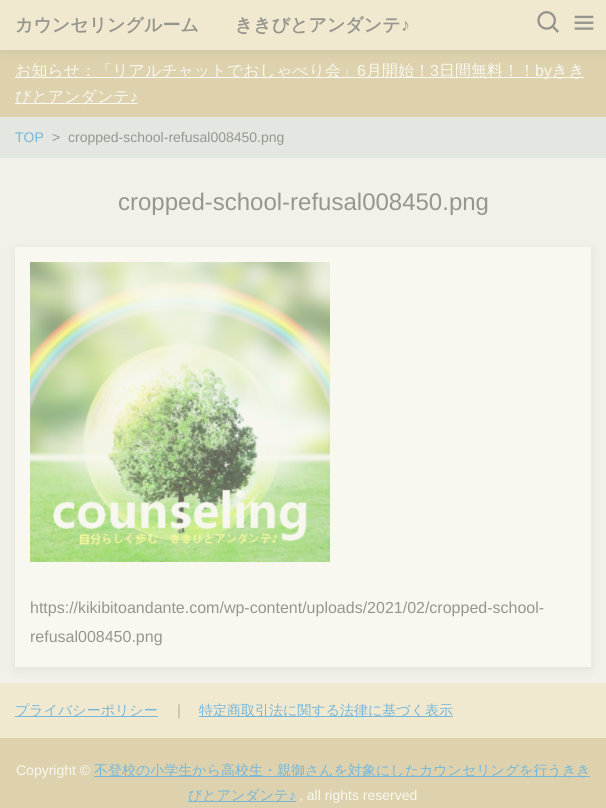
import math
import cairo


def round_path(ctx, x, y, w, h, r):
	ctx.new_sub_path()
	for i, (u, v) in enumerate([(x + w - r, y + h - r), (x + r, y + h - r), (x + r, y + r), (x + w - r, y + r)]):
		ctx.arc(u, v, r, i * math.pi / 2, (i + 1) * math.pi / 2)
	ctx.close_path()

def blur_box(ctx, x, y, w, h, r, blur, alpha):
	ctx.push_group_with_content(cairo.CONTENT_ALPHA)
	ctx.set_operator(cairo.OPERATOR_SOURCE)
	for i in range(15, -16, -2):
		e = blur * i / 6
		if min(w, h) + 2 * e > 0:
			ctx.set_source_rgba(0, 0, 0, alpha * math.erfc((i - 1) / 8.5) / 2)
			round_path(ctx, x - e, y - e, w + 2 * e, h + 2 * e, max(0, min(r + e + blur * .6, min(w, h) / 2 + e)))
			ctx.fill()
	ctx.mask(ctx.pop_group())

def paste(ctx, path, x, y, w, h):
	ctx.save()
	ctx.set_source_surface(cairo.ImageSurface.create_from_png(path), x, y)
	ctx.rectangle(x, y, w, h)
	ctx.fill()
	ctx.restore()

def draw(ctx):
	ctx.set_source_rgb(0.945, 0.945, 0.914)
	ctx.paint()
	ctx.set_source_rgb(0.867, 0.824, 0.678)
	ctx.rectangle(0, 50, 606, 67)
	ctx.fill()
	ctx.set_source_rgb(0.329, 0.329, 0.302)
	blur_box(ctx, 0, 2, 606, 50, 0, 5, 0.1)
	ctx.set_source_rgb(0.941, 0.914, 0.812)
	ctx.rectangle(0, 0, 606, 50)
	ctx.fill()
	ctx.select_font_face('WenQuanYi Zen Hei', cairo.FONT_SLANT_NORMAL, cairo.FONT_WEIGHT_BOLD)
	ctx.set_font_size(18)
	ctx.set_source_rgb(0.588, 0.588, 0.557)
	ctx.move_to(15, 31)
	ctx.show_text('カウンセリングルーム　　ききびとアンダンテ')
	ctx.select_font_face('Liberation Sans', cairo.FONT_SLANT_NORMAL, cairo.FONT_WEIGHT_BOLD)
	ctx.move_to(401, 31)
	ctx.show_text('♪')
	paste(ctx, 'media/1.png', 537, 11, 22, 22)
	paste(ctx, 'media/2.png', 574, 15, 20, 15)
	ctx.set_source_rgb(0.969, 0.969, 0.941)
	ctx.rectangle(15, 77, 569, 1)
	ctx.fill()
	ctx.select_font_face('WenQuanYi Zen Hei Medium')
	ctx.set_font_size(16)
	ctx.move_to(15, 76)
	ctx.show_text('お知らせ：「リアルチャットでおしゃべり会」')
	ctx.select_font_face('Liberation Sans')
	ctx.move_to(357, 76)
	ctx.show_text('6')
	ctx.select_font_face('WenQuanYi Zen Hei Medium')
	ctx.move_to(366, 76)
	ctx.show_text('月開始！')
	ctx.select_font_face('Liberation Sans')
	ctx.move_to(430, 76)
	ctx.show_text('3')
	ctx.select_font_face('WenQuanYi Zen Hei Medium')
	ctx.move_to(439, 76)
	ctx.show_text('日間無料！！')
	ctx.select_font_face('Liberation Sans')
	ctx.move_to(535, 76)
	ctx.show_text('by')
	ctx.select_font_face('WenQuanYi Zen Hei Medium')
	ctx.move_to(552, 76)
	ctx.show_text('きき')
	ctx.rectangle(15, 103, 123, 1)
	ctx.fill()
	ctx.move_to(15, 102)
	ctx.show_text('びとアンダンテ')
	ctx.select_font_face('Liberation Sans')
	ctx.move_to(130, 102)
	ctx.show_text('♪')
	ctx.set_source_rgb(0.894, 0.906, 0.882)
	ctx.rectangle(0, 117, 606, 41)
	ctx.fill()
	ctx.set_font_size(14)
	ctx.set_source_rgb(0.459, 0.714, 0.851)
	ctx.move_to(15, 142)
	ctx.show_text('TOP')
	ctx.set_source_rgb(0.588, 0.588, 0.557)
	ctx.move_to(52, 142)
	ctx.show_text('>')
	ctx.move_to(68, 142)
	ctx.show_text('cropped-school-refusal008450.png')
	ctx.set_font_size(24)
	ctx.move_to(118, 210)
	ctx.show_text('cropped-school-refusal008450.png')
	ctx.set_source_rgb(0.941, 0.914, 0.812)
	ctx.rectangle(0, 683, 606, 55)
	ctx.fill()
	ctx.set_source_rgb(0.329, 0.329, 0.302)
	blur_box(ctx, 15, 249, 576, 420, 0, 5, 0.1)
	ctx.set_source_rgb(0.969, 0.969, 0.941)
	ctx.rectangle(15, 247, 576, 420)
	ctx.fill()
	paste(ctx, 'media/3.png', 30, 262, 300, 300)
	ctx.set_font_size(16)
	ctx.set_source_rgb(0.588, 0.588, 0.557)
	ctx.move_to(30, 613)
	ctx.show_text('https://kikibitoandante.com/wp-content/uploads/2021/02/cropped-school-')
	ctx.move_to(30, 642)
	ctx.show_text('refusal008450.png')
	ctx.set_source_rgb(0.459, 0.714, 0.851)
	ctx.rectangle(15, 716, 143, 1)
	ctx.fill()
	ctx.select_font_face('WenQuanYi Zen Hei Medium')
	ctx.set_font_size(14)
	ctx.move_to(15, 715)
	ctx.show_text('プライバシーポリシー')
	ctx.set_source_rgb(0.588, 0.588, 0.557)
	ctx.move_to(172, 715)
	ctx.show_text('｜')
	ctx.set_source_rgb(0.459, 0.714, 0.851)
	ctx.rectangle(199, 716, 254, 1)
	ctx.fill()
	ctx.move_to(199, 715)
	ctx.show_text('特定商取引法に関する法律に基づく表示')
	ctx.set_source_rgb(0.867, 0.824, 0.678)
	ctx.rectangle(0, 738, 606, 70)
	ctx.fill()
	ctx.select_font_face('Liberation Sans')
	ctx.set_source_rgb(0.969, 0.969, 0.941)
	ctx.move_to(16, 775)
	ctx.show_text('Copyright ©')
	ctx.set_source_rgb(0.459, 0.714, 0.851)
	ctx.rectangle(94, 776, 496, 1)
	ctx.fill()
	ctx.select_font_face('WenQuanYi Zen Hei Medium')
	ctx.move_to(94, 775)
	ctx.show_text('不登校の小学生から高校生・親御さんを対象にしたカウンセリングを行うきき')
	ctx.rectangle(188, 801, 108, 1)
	ctx.fill()
	ctx.move_to(188, 800)
	ctx.show_text('びとアンダンテ')
	ctx.select_font_face('Liberation Sans')
	ctx.move_to(289, 800)
	ctx.show_text('♪')
	ctx.set_source_rgb(0.969, 0.969, 0.941)
	ctx.move_to(299, 800)
	ctx.show_text(', all rights reserved')


surface = cairo.ImageSurface(cairo.FORMAT_RGB24, 606, 808)
ctx = cairo.Context(surface)
options = cairo.FontOptions()
options.set_hint_metrics(cairo.HINT_METRICS_OFF)
options.set_hint_style(cairo.HINT_STYLE_NONE)
ctx.set_font_options(options)
ctx.set_miter_limit(4)
draw(ctx)
surface.write_to_png('image.png')
